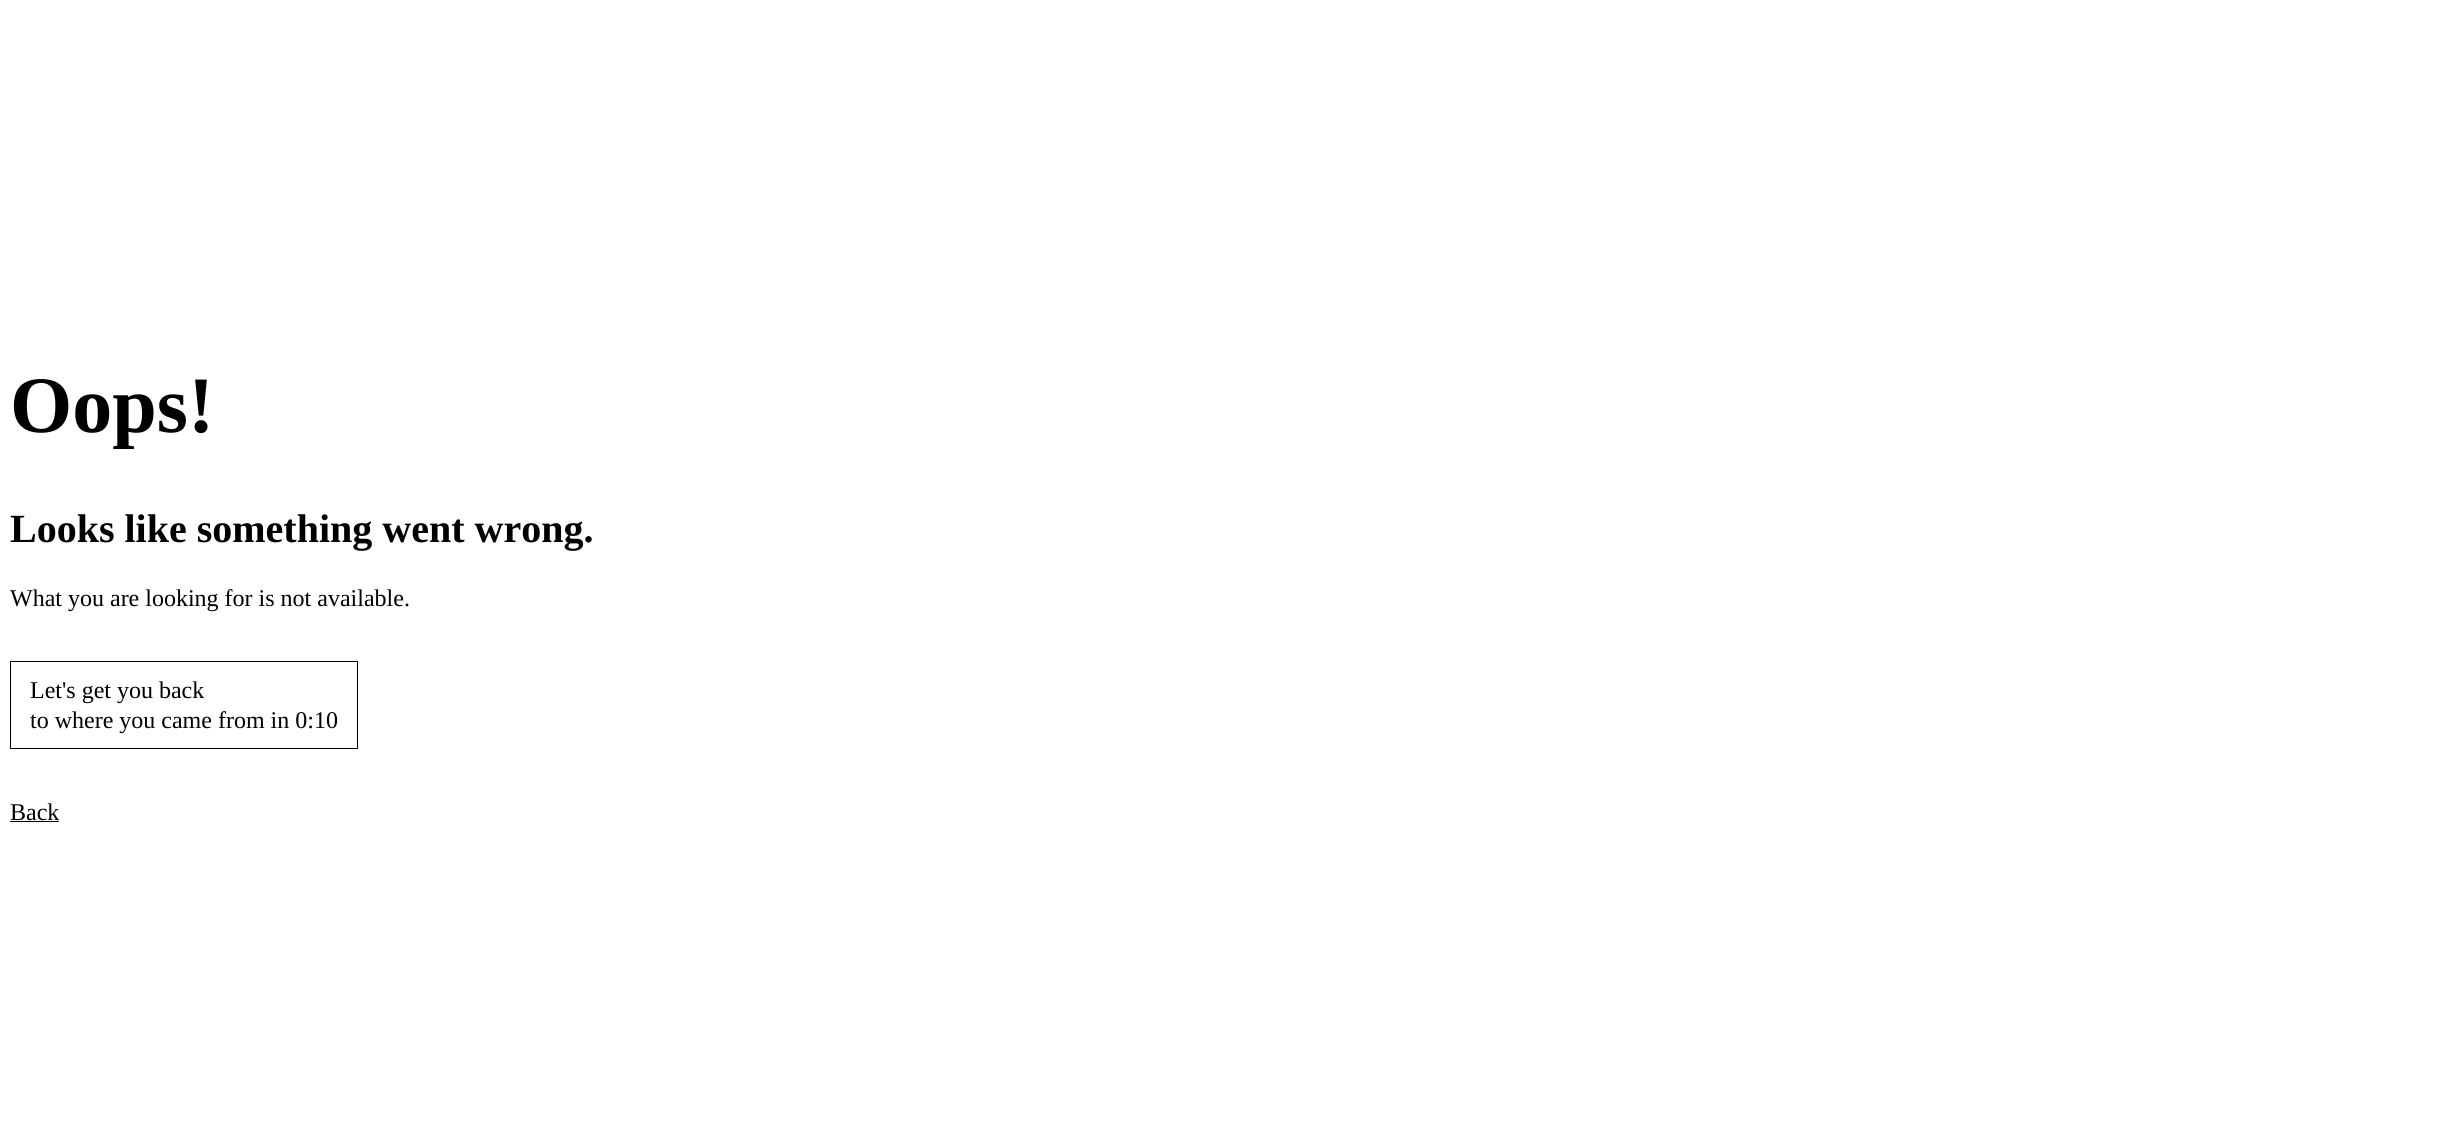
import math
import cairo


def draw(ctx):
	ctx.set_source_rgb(1, 1, 1)
	ctx.paint()
	ctx.select_font_face('Liberation Serif', cairo.FONT_SLANT_NORMAL, cairo.FONT_WEIGHT_BOLD)
	ctx.set_font_size(80)
	ctx.set_source_rgb(0, 0, 0)
	ctx.move_to(10, 432)
	ctx.show_text('Oops!')
	ctx.set_font_size(40)
	ctx.move_to(10, 542)
	ctx.show_text('Looks like something went wrong.')
	ctx.select_font_face('Liberation Serif')
	ctx.set_font_size(24)
	ctx.move_to(10, 606)
	ctx.show_text('What you are looking for is not available.')
	ctx.rectangle(10.5, 661.5, 347, 87)
	ctx.set_line_width(1)
	ctx.stroke()
	for x, y, s in [
		(30, 698, 'Let\'s get you back'),
		(30, 728, 'to where you came from in 0:10'),
		(10, 820, 'Back'),
	]:
		ctx.move_to(x, y)
		ctx.show_text(s)
	ctx.rectangle(10, 821, 49, 1)
	ctx.fill()


surface = cairo.ImageSurface(cairo.FORMAT_RGB24, 2437, 1140)
ctx = cairo.Context(surface)
options = cairo.FontOptions()
options.set_hint_metrics(cairo.HINT_METRICS_OFF)
options.set_hint_style(cairo.HINT_STYLE_NONE)
ctx.set_font_options(options)
ctx.set_miter_limit(4)
draw(ctx)
surface.write_to_png('image.png')
